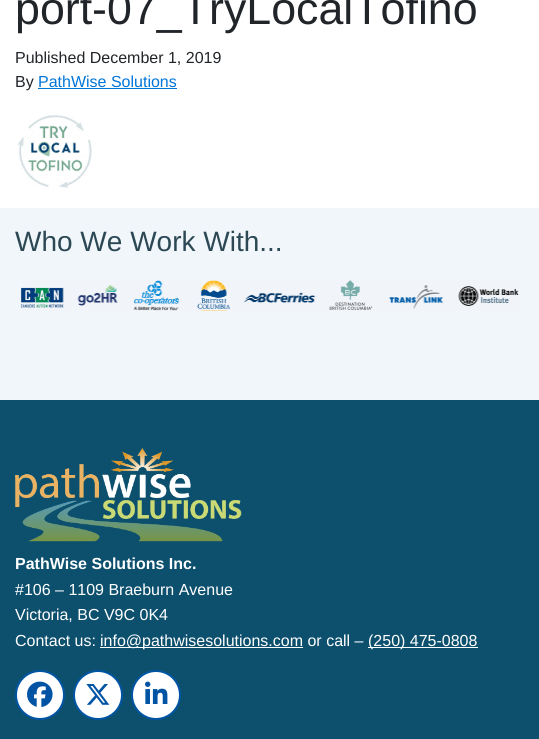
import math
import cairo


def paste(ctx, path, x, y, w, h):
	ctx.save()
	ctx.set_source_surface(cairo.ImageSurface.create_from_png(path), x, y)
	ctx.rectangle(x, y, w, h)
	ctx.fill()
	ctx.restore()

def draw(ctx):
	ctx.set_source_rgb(1, 1, 1)
	ctx.paint()
	ctx.select_font_face('Liberation Sans')
	ctx.set_font_size(44.75)
	ctx.set_source_rgb(0.129, 0.145, 0.161)
	ctx.move_to(15, 24)
	ctx.show_text('port-07_TryLocalTofino')
	ctx.set_font_size(16)
	ctx.move_to(15, 63)
	ctx.show_text('Published December 1, 2019')
	ctx.move_to(15, 87)
	ctx.show_text('By')
	ctx.set_source_rgb(0, 0.459, 0.851)
	ctx.move_to(38, 87)
	ctx.show_text('PathWise Solutions')
	ctx.rectangle(38, 88, 139, 1)
	ctx.fill()
	paste(ctx, 'media/1.png', 17, 115, 75, 73)
	ctx.set_source_rgb(0.941, 0.961, 0.976)
	ctx.rectangle(0, 208, 539, 192)
	ctx.fill()
	ctx.set_font_size(28)
	ctx.set_source_rgb(0.169, 0.282, 0.329)
	ctx.move_to(15, 251)
	ctx.show_text('Who We Work With...')
	paste(ctx, 'media/2.png', 20, 280, 499, 31)
	ctx.set_source_rgb(0.051, 0.314, 0.431)
	ctx.rectangle(0, 400, 539, 339)
	ctx.fill()
	paste(ctx, 'media/3.png', 15, 448, 227, 94)
	ctx.select_font_face('Liberation Sans', cairo.FONT_SLANT_NORMAL, cairo.FONT_WEIGHT_BOLD)
	ctx.set_font_size(16)
	ctx.set_source_rgb(1, 1, 1)
	ctx.move_to(15, 569)
	ctx.show_text('PathWise Solutions Inc.')
	ctx.select_font_face('Liberation Sans')
	for x, y, s in [
		(15, 595, '#106 – 1109 Braeburn Avenue'),
		(15, 620, 'Victoria, BC V9C 0K4'),
		(15, 646, 'Contact us:'),
	]:
		ctx.move_to(x, y)
		ctx.show_text(s)
	ctx.rectangle(100, 647, 203, 1)
	ctx.fill()
	ctx.move_to(100, 646)
	ctx.show_text('info@pathwisesolutions.com or call –')
	ctx.rectangle(368, 647, 110, 1)
	ctx.fill()
	ctx.move_to(368, 646)
	ctx.show_text('(250) 475-0808')
	ctx.new_path()
	ctx.arc(40, 695, 24, 0, 2 * math.pi)
	ctx.fill_preserve()
	ctx.set_source_rgb(0, 0.329, 0.639)
	ctx.stroke()
	paste(ctx, 'media/4.png', 27, 681, 26, 26)
	ctx.set_source_rgb(1, 1, 1)
	ctx.arc(98, 695, 24, 0, 2 * math.pi)
	ctx.fill_preserve()
	ctx.set_source_rgb(0, 0.329, 0.639)
	ctx.stroke()
	paste(ctx, 'media/5.png', 86, 684, 24, 21)
	ctx.set_source_rgb(1, 1, 1)
	ctx.arc(156, 695, 24, 0, 2 * math.pi)
	ctx.fill_preserve()
	ctx.set_source_rgb(0, 0.329, 0.639)
	ctx.stroke()
	paste(ctx, 'media/6.png', 145, 681, 23, 23)


surface = cairo.ImageSurface(cairo.FORMAT_RGB24, 539, 739)
ctx = cairo.Context(surface)
options = cairo.FontOptions()
options.set_hint_metrics(cairo.HINT_METRICS_OFF)
options.set_hint_style(cairo.HINT_STYLE_NONE)
ctx.set_font_options(options)
ctx.set_miter_limit(4)
draw(ctx)
surface.write_to_png('image.png')
